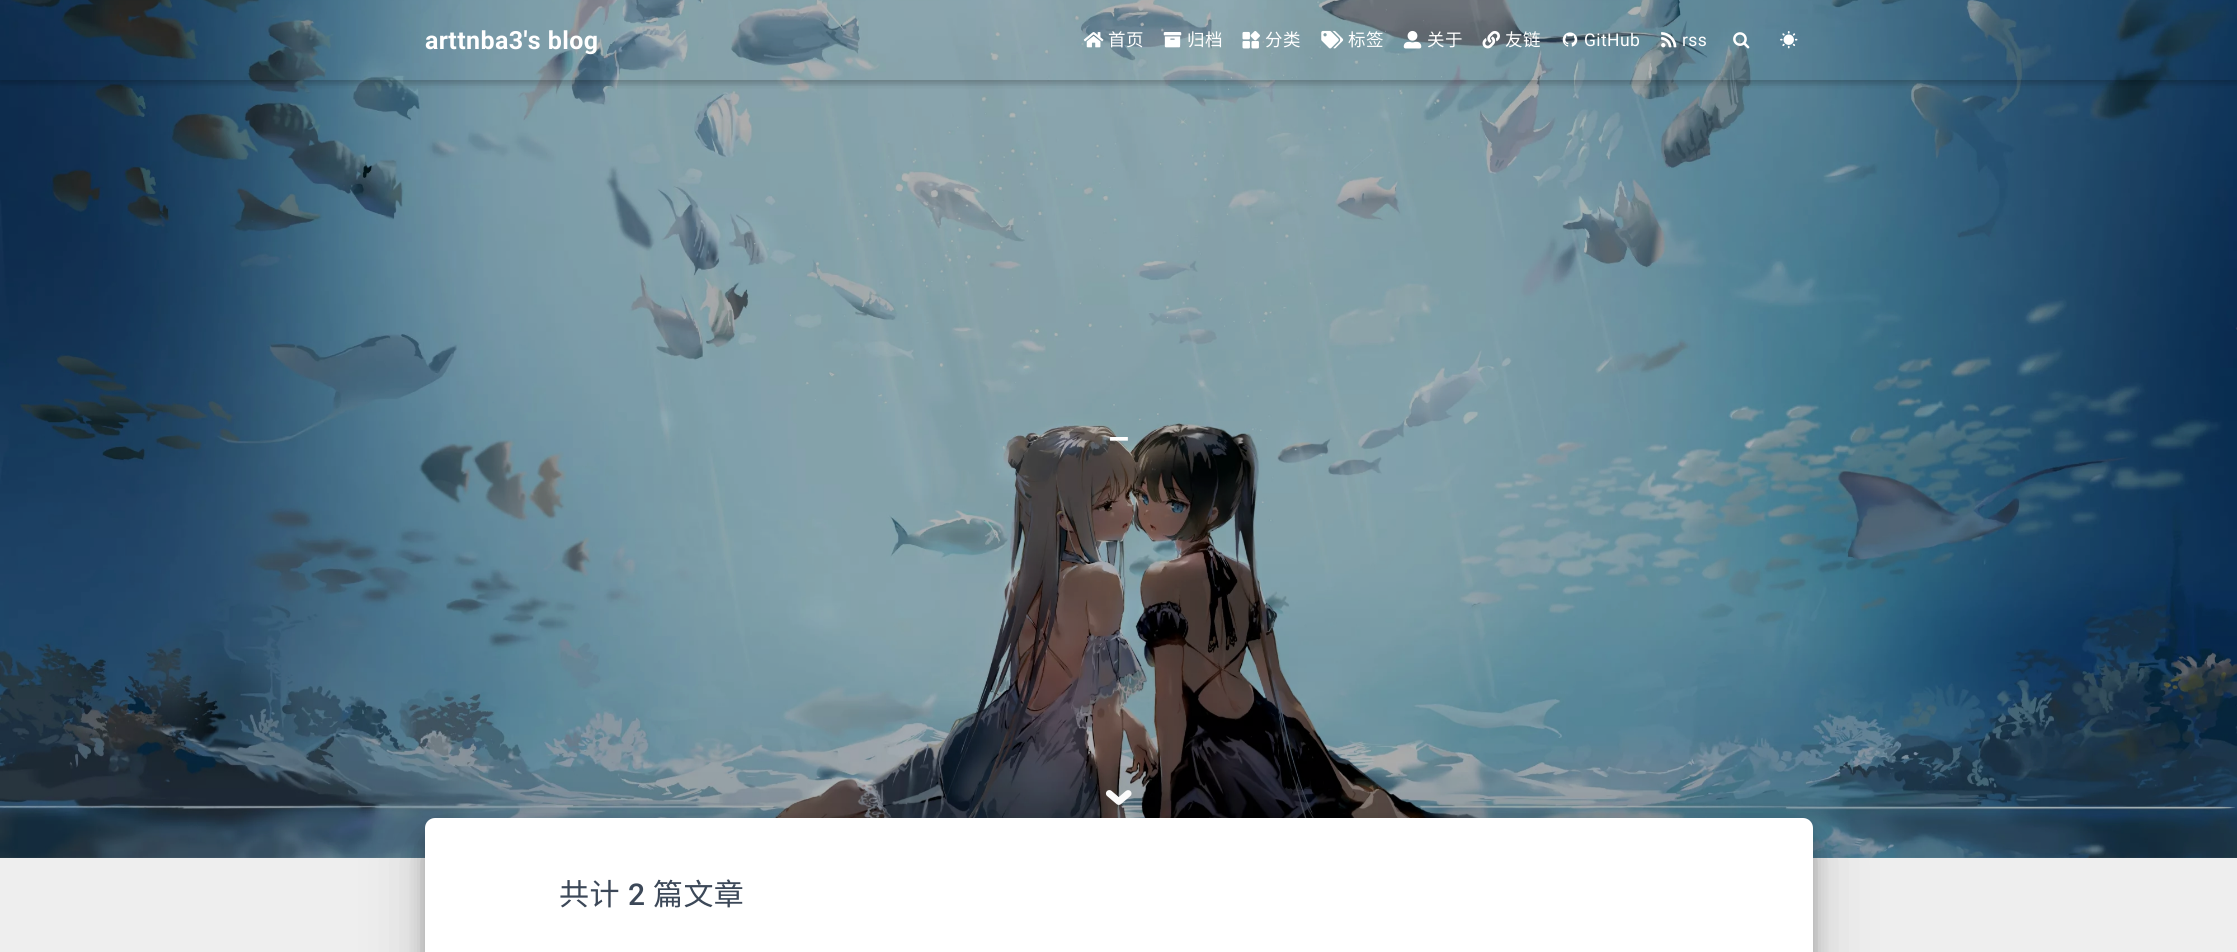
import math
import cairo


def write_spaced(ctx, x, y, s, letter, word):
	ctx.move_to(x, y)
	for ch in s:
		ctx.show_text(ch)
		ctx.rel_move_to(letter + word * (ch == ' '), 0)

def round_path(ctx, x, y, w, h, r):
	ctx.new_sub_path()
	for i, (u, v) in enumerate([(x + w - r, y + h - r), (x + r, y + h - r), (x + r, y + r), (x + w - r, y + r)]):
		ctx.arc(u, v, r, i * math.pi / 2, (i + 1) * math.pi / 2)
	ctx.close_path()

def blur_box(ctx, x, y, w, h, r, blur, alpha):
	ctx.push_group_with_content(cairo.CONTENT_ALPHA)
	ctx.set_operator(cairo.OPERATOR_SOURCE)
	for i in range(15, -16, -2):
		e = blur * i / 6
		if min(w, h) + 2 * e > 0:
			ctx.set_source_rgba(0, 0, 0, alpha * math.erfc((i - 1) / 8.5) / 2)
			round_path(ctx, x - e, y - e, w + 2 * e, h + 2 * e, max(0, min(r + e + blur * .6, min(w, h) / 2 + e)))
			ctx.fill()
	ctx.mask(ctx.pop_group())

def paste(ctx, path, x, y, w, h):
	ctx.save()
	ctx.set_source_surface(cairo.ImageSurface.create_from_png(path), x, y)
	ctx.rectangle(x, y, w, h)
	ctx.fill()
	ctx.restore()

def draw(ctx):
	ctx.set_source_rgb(0.933, 0.933, 0.933)
	ctx.paint()
	paste(ctx, 'media/11.png', 0, 0, 2237, 858)
	ctx.save()
	ctx.rectangle(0, 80, 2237, 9)
	ctx.clip()
	ctx.set_source_rgb(0, 0, 0)
	blur_box(ctx, 0, 3, 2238, 80, 0, 6, 0.12)
	ctx.restore()
	ctx.save()
	ctx.rectangle(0, 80, 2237, 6)
	ctx.clip()
	ctx.set_source_rgb(0, 0, 0)
	blur_box(ctx, 0, 3, 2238, 80, 0, 3, 0.16)
	ctx.restore()
	ctx.select_font_face('Roboto', cairo.FONT_SLANT_NORMAL, cairo.FONT_WEIGHT_BOLD)
	ctx.set_font_size(25)
	ctx.set_source_rgb(1, 1, 1)
	write_spaced(ctx, 425, 49, 'arttnba3\'s blog', 0.4, 0)
	paste(ctx, 'media/1.png', 1083, 32, 21, 16)
	ctx.select_font_face('Noto Sans CJK SC')
	ctx.set_font_size(17.5)
	write_spaced(ctx, 1108, 46, '首页', 0.4, 0)
	paste(ctx, 'media/2.png', 1163, 32, 19, 16)
	write_spaced(ctx, 1187, 46, '归档', 0.4, 0)
	paste(ctx, 'media/3.png', 1242, 31, 18, 18)
	write_spaced(ctx, 1265, 46, '分类', 0.4, 0)
	paste(ctx, 'media/4.png', 1321, 30, 23, 19)
	write_spaced(ctx, 1348, 46, '标签', 0.4, 0)
	paste(ctx, 'media/5.png', 1403, 30, 19, 19)
	write_spaced(ctx, 1427, 46, '关于', 0.4, 0)
	paste(ctx, 'media/6.png', 1482, 30, 18, 19)
	write_spaced(ctx, 1505, 46, '友链', 0.4, 0)
	paste(ctx, 'media/7.png', 1562, 32, 16, 15)
	ctx.select_font_face('Roboto')
	write_spaced(ctx, 1584, 46, 'GitHub', 0.4, 0)
	paste(ctx, 'media/8.png', 1661, 32, 16, 16)
	write_spaced(ctx, 1682, 46, 'rss', 0.4, 0)
	paste(ctx, 'media/9.png', 1733, 32, 17, 17)
	paste(ctx, 'media/10.png', 1780, 31, 18, 18)
	ctx.select_font_face('Roboto Medium')
	ctx.set_font_size(40)
	write_spaced(ctx, 1110, 437, '_', 0.4, 0)
	paste(ctx, 'media/12.png', 1105, 790, 27, 15)
	ctx.set_source_rgb(0, 0, 0)
	blur_box(ctx, 425, 839, 1388, 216, 10, 31, 0.19)
	blur_box(ctx, 425, 833, 1388, 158, 10, 9.5, 0.24)
	ctx.set_source_rgb(1, 1, 1)
	round_path(ctx, 425, 818, 1388, 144, 10)
	ctx.fill()
	ctx.select_font_face('Noto Sans CJK SC')
	ctx.set_font_size(30)
	ctx.set_source_rgb(0.235, 0.282, 0.345)
	write_spaced(ctx, 559, 905, '共计', 0.4, 0)
	ctx.select_font_face('Roboto Medium')
	write_spaced(ctx, 628, 905, '2', 0.4, 0)
	ctx.select_font_face('Noto Sans CJK SC')
	write_spaced(ctx, 653, 905, '篇文章', 0.4, 0)


surface = cairo.ImageSurface(cairo.FORMAT_RGB24, 2237, 952)
ctx = cairo.Context(surface)
options = cairo.FontOptions()
options.set_hint_metrics(cairo.HINT_METRICS_OFF)
options.set_hint_style(cairo.HINT_STYLE_NONE)
ctx.set_font_options(options)
ctx.set_miter_limit(4)
draw(ctx)
surface.write_to_png('image.png')
